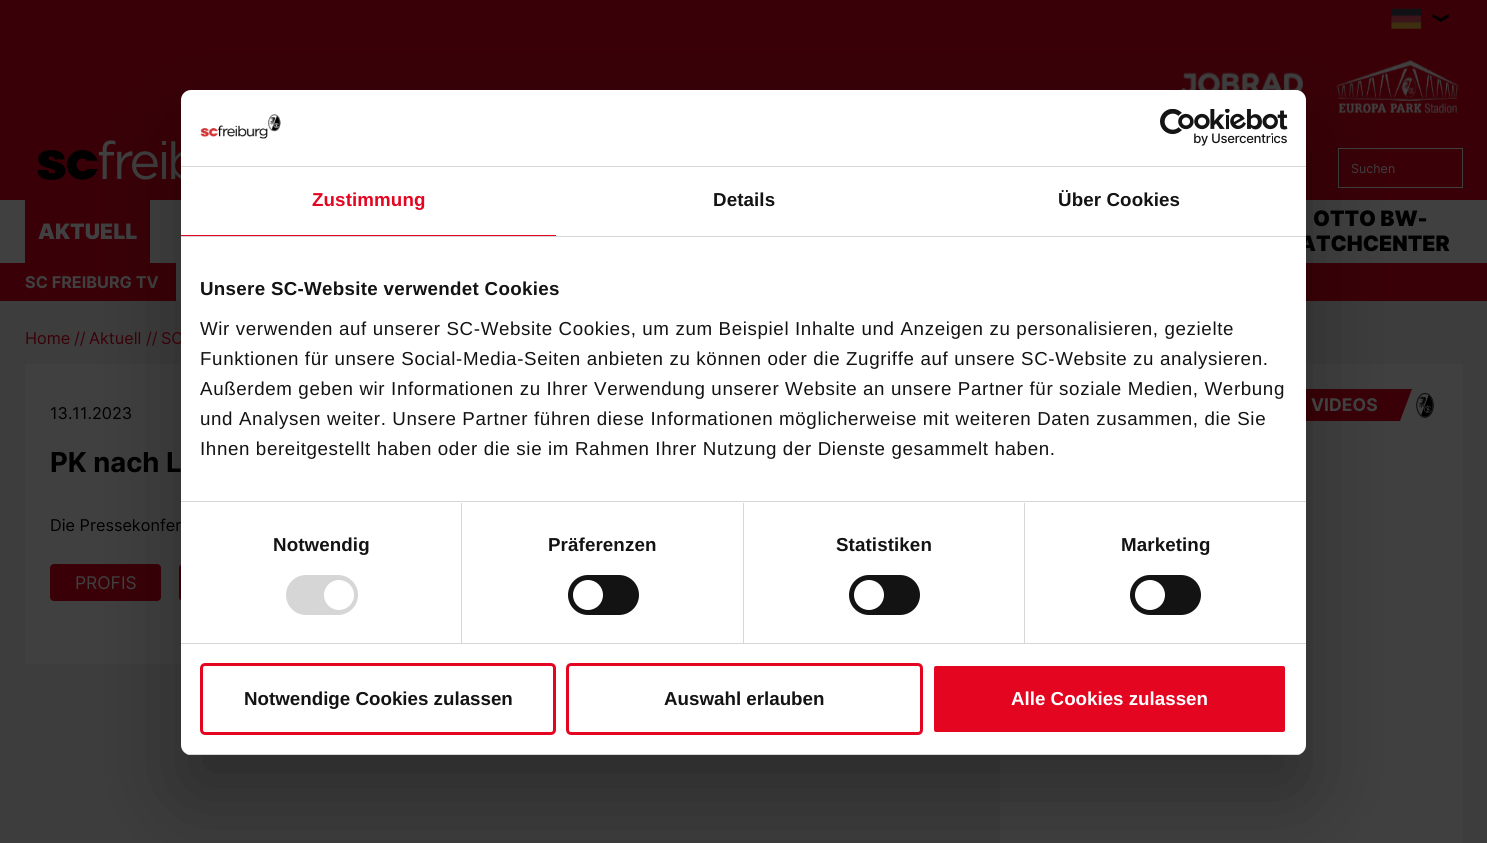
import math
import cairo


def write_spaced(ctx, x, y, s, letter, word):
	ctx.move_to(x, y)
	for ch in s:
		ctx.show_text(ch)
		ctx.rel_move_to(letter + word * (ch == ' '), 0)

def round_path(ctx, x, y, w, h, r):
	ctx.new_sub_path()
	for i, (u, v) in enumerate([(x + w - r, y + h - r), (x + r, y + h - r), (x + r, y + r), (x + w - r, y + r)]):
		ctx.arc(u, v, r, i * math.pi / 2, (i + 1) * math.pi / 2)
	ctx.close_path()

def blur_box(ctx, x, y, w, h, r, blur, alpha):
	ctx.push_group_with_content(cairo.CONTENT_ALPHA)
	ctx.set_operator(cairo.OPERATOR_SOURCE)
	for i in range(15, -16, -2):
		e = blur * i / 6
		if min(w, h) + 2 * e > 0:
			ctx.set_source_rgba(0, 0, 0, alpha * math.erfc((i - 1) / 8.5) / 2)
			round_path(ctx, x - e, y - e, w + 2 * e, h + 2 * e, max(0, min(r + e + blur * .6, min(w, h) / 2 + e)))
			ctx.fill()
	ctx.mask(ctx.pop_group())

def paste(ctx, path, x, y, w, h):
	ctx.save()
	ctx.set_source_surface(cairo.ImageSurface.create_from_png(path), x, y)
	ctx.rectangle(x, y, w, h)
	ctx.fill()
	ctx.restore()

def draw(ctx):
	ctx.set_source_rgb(0.239, 0.239, 0.239)
	ctx.paint()
	ctx.set_source_rgb(0.224, 0.004, 0.031)
	ctx.rectangle(0, 0, 1487, 200)
	ctx.fill()
	paste(ctx, 'media/1.png', 1391, 8, 31, 21)
	paste(ctx, 'media/2.png', 1432, 14, 17, 8)
	paste(ctx, 'media/3.png', 38, 140, 143, 40)
	paste(ctx, 'media/4.png', 1180, 71, 123, 21)
	paste(ctx, 'media/5.png', 1336, 59, 123, 54)
	ctx.rectangle(1338.5, 148.5, 124, 39)
	ctx.set_source_rgb(0.251, 0.251, 0.251)
	ctx.set_line_width(1)
	ctx.stroke()
	ctx.select_font_face('Inter')
	ctx.set_font_size(12.5)
	ctx.move_to(1351, 173)
	ctx.show_text('Suchen')
	ctx.rectangle(0, 200, 1487, 63)
	ctx.fill()
	ctx.set_source_rgb(0.224, 0.004, 0.031)
	ctx.rectangle(25, 200, 125, 63)
	ctx.fill()
	ctx.select_font_face('Inter Black')
	ctx.set_font_size(21.25)
	ctx.set_source_rgb(0.251, 0.251, 0.251)
	ctx.move_to(38, 239)
	ctx.show_text('AKTUELL')
	ctx.set_source_rgb(0, 0, 0)
	ctx.move_to(1313, 226)
	ctx.show_text('OTTO BW-')
	ctx.move_to(1299, 251)
	ctx.show_text('ATCHCENTER')
	ctx.set_source_rgb(0.224, 0.004, 0.031)
	ctx.rectangle(0, 263, 1487, 38)
	ctx.fill()
	ctx.select_font_face('Inter', cairo.FONT_SLANT_NORMAL, cairo.FONT_WEIGHT_BOLD)
	ctx.set_font_size(16.25)
	ctx.set_source_rgb(0.251, 0.251, 0.251)
	ctx.move_to(25, 288)
	ctx.show_text('SC FREIBURG TV')
	ctx.rectangle(176, 263, 5, 38)
	ctx.rectangle(1000, 364, 463, 479)
	ctx.fill()
	ctx.set_source_rgb(0.224, 0.004, 0.031)
	ctx.rectangle(1306, 389, 106, 32)
	ctx.fill()
	ctx.save()
	ctx.rectangle(1193, 389, 245, 32)
	ctx.clip()
	ctx.set_source_rgb(0.251, 0.251, 0.251)
	ctx.new_path()
	ctx.move_to(1412, 389)
	ctx.line_to(1475, 389)
	ctx.line_to(1463, 421)
	ctx.line_to(1400, 421)
	ctx.close_path()
	ctx.fill()
	ctx.restore()
	paste(ctx, 'media/8.png', 1416, 392, 18, 26)
	ctx.set_source_rgb(0.251, 0.251, 0.251)
	ctx.rectangle(25, 364, 156, 300)
	ctx.fill()
	ctx.set_source_rgb(0.224, 0.004, 0.031)
	round_path(ctx, 50, 564, 111, 37, 4)
	ctx.fill()
	round_path(ctx, 179, 564, 220, 37, 4)
	ctx.fill()
	ctx.set_source_rgb(0, 0, 0)
	blur_box(ctx, 181, 130, 1125, 665, 10, 42.5, 0.3)
	ctx.select_font_face('Inter')
	ctx.set_source_rgb(0.224, 0.004, 0.031)
	ctx.move_to(161, 344)
	ctx.show_text('SC')
	ctx.set_source_rgb(1, 1, 1)
	round_path(ctx, 181, 90, 1125, 665, 10)
	ctx.fill()
	ctx.set_source_rgb(0.839, 0.839, 0.839)
	ctx.rectangle(181, 166, 1125, 1)
	ctx.fill()
	paste(ctx, 'media/6.png', 200, 114, 81, 25)
	paste(ctx, 'media/7.png', 1160, 109, 128, 37)
	ctx.rectangle(181, 236, 1125, 1)
	ctx.fill()
	ctx.set_source_rgb(0.894, 0.02, 0.129)
	ctx.rectangle(181, 235, 375, 1)
	ctx.fill()
	ctx.select_font_face('Liberation Sans', cairo.FONT_SLANT_NORMAL, cairo.FONT_WEIGHT_BOLD)
	ctx.set_font_size(18.75)
	write_spaced(ctx, 312, 206, 'Zustimmung', 0.1, 0)
	ctx.set_source_rgb(0.078, 0.078, 0.078)
	write_spaced(ctx, 713, 206, 'Details', 0.1, 0)
	write_spaced(ctx, 1058, 206, 'Über Cookies', 0.1, 0)
	ctx.set_source_rgb(0.839, 0.839, 0.839)
	ctx.rectangle(181, 501, 1125, 1)
	ctx.fill()
	ctx.set_source_rgb(0.078, 0.078, 0.078)
	write_spaced(ctx, 200, 295, 'Unsere SC-Website verwendet Cookies', 0.3, 0)
	ctx.select_font_face('Liberation Sans')
	for x, y, s in [
		(200, 335, 'Wir verwenden auf unserer SC-Website Cookies, um zum Beispiel Inhalte und Anzeigen zu personalisieren, gezielte'),
		(200, 365, 'Funktionen für unsere Social-Media-Seiten anbieten zu können oder die Zugriffe auf unsere SC-Website zu analysieren.'),
		(200, 395, 'Außerdem geben wir Informationen zu Ihrer Verwendung unserer Website an unsere Partner für soziale Medien, Werbung'),
		(200, 425, 'und Analysen weiter. Unsere Partner führen diese Informationen möglicherweise mit weiteren Daten zusammen, die Sie'),
		(200, 455, 'Ihnen bereitgestellt haben oder die sie im Rahmen Ihrer Nutzung der Dienste gesammelt haben.'),
	]:
		write_spaced(ctx, x, y, s, 0.62, 0)
	ctx.set_source_rgb(0.839, 0.839, 0.839)
	ctx.rectangle(181, 643, 1125, 1)
	ctx.fill()
	ctx.rectangle(461, 503, 1, 140)
	ctx.fill()
	ctx.select_font_face('Liberation Sans', cairo.FONT_SLANT_NORMAL, cairo.FONT_WEIGHT_BOLD)
	ctx.set_source_rgb(0.078, 0.078, 0.078)
	write_spaced(ctx, 273, 551, 'Notwendig', 0.1, 0)
	ctx.set_source_rgb(0.839, 0.839, 0.839)
	round_path(ctx, 286, 575, 72, 40, 20)
	ctx.fill()
	ctx.set_source_rgb(1, 1, 1)
	ctx.arc(339, 595, 15, 0, 2 * math.pi)
	ctx.fill()
	ctx.set_source_rgb(0.839, 0.839, 0.839)
	ctx.rectangle(743, 503, 1, 140)
	ctx.fill()
	ctx.set_source_rgb(0.078, 0.078, 0.078)
	write_spaced(ctx, 548, 551, 'Präferenzen', 0.1, 0)
	round_path(ctx, 568, 575, 71, 40, 20)
	ctx.fill()
	ctx.set_source_rgb(1, 1, 1)
	ctx.arc(588, 595, 15, 0, 2 * math.pi)
	ctx.fill()
	ctx.set_source_rgb(0.839, 0.839, 0.839)
	ctx.rectangle(1024, 503, 1, 140)
	ctx.fill()
	ctx.set_source_rgb(0.078, 0.078, 0.078)
	write_spaced(ctx, 836, 551, 'Statistiken', 0.1, 0)
	round_path(ctx, 849, 575, 71, 40, 20)
	ctx.fill()
	ctx.set_source_rgb(1, 1, 1)
	ctx.arc(869, 595, 15, 0, 2 * math.pi)
	ctx.fill()
	ctx.set_source_rgb(0.078, 0.078, 0.078)
	write_spaced(ctx, 1121, 551, 'Marketing', 0.1, 0)
	round_path(ctx, 1130, 575, 71, 40, 20)
	ctx.fill()
	ctx.set_source_rgb(1, 1, 1)
	ctx.arc(1150, 595, 15, 0, 2 * math.pi)
	ctx.fill()
	ctx.save()
	round_path(ctx, 181, 90, 1125, 665, 10)
	ctx.clip()
	ctx.set_source_rgb(0.839, 0.839, 0.839)
	ctx.rectangle(181, 754, 1125, 1)
	ctx.fill()
	ctx.restore()
	round_path(ctx, 201.5, 664.5, 353, 69, 3.5)
	ctx.set_source_rgb(0.894, 0.02, 0.129)
	ctx.set_line_width(3)
	ctx.stroke()
	ctx.set_source_rgb(0.078, 0.078, 0.078)
	ctx.move_to(244, 705)
	ctx.show_text('Notwendige Cookies zulassen')
	round_path(ctx, 567.5, 664.5, 354, 69, 3.5)
	ctx.set_source_rgb(0.894, 0.02, 0.129)
	ctx.stroke()
	ctx.set_source_rgb(0.078, 0.078, 0.078)
	ctx.move_to(664, 705)
	ctx.show_text('Auswahl erlauben')
	ctx.set_source_rgb(0.894, 0.02, 0.129)
	round_path(ctx, 932.5, 664.5, 354, 69, 3.5)
	ctx.fill_preserve()
	ctx.set_source_rgb(1, 1, 1)
	ctx.stroke()
	ctx.move_to(1011, 705)
	ctx.show_text('Alle Cookies zulassen')
	ctx.select_font_face('Inter')
	ctx.set_font_size(16.25)
	ctx.set_source_rgb(0.224, 0.004, 0.031)
	for x, y, s in [
		(25, 344, 'Home'),
		(74, 344, '//'),
		(89, 344, 'Aktuell'),
		(146, 344, '//'),
	]:
		ctx.move_to(x, y)
		ctx.show_text(s)
	ctx.select_font_face('Inter', cairo.FONT_SLANT_NORMAL, cairo.FONT_WEIGHT_BOLD)
	ctx.set_font_size(17.5)
	ctx.set_source_rgb(0.251, 0.251, 0.251)
	ctx.move_to(1311, 411)
	ctx.show_text('VIDEOS')
	ctx.select_font_face('Inter')
	ctx.set_font_size(16.25)
	ctx.set_source_rgb(0, 0, 0)
	ctx.move_to(50, 419)
	ctx.show_text('13.11.2023')
	ctx.select_font_face('Inter', cairo.FONT_SLANT_NORMAL, cairo.FONT_WEIGHT_BOLD)
	ctx.set_font_size(27.5)
	ctx.move_to(50, 472)
	ctx.show_text('PK nach L')
	ctx.select_font_face('Inter')
	ctx.set_font_size(16.25)
	ctx.move_to(50, 531)
	ctx.show_text('Die Pressekonfer')
	ctx.set_font_size(17.5)
	ctx.set_source_rgb(0.251, 0.251, 0.251)
	ctx.move_to(75, 589)
	ctx.show_text('PROFIS')


surface = cairo.ImageSurface(cairo.FORMAT_RGB24, 1487, 843)
ctx = cairo.Context(surface)
options = cairo.FontOptions()
options.set_hint_metrics(cairo.HINT_METRICS_OFF)
options.set_hint_style(cairo.HINT_STYLE_NONE)
ctx.set_font_options(options)
ctx.set_miter_limit(4)
draw(ctx)
surface.write_to_png('image.png')
